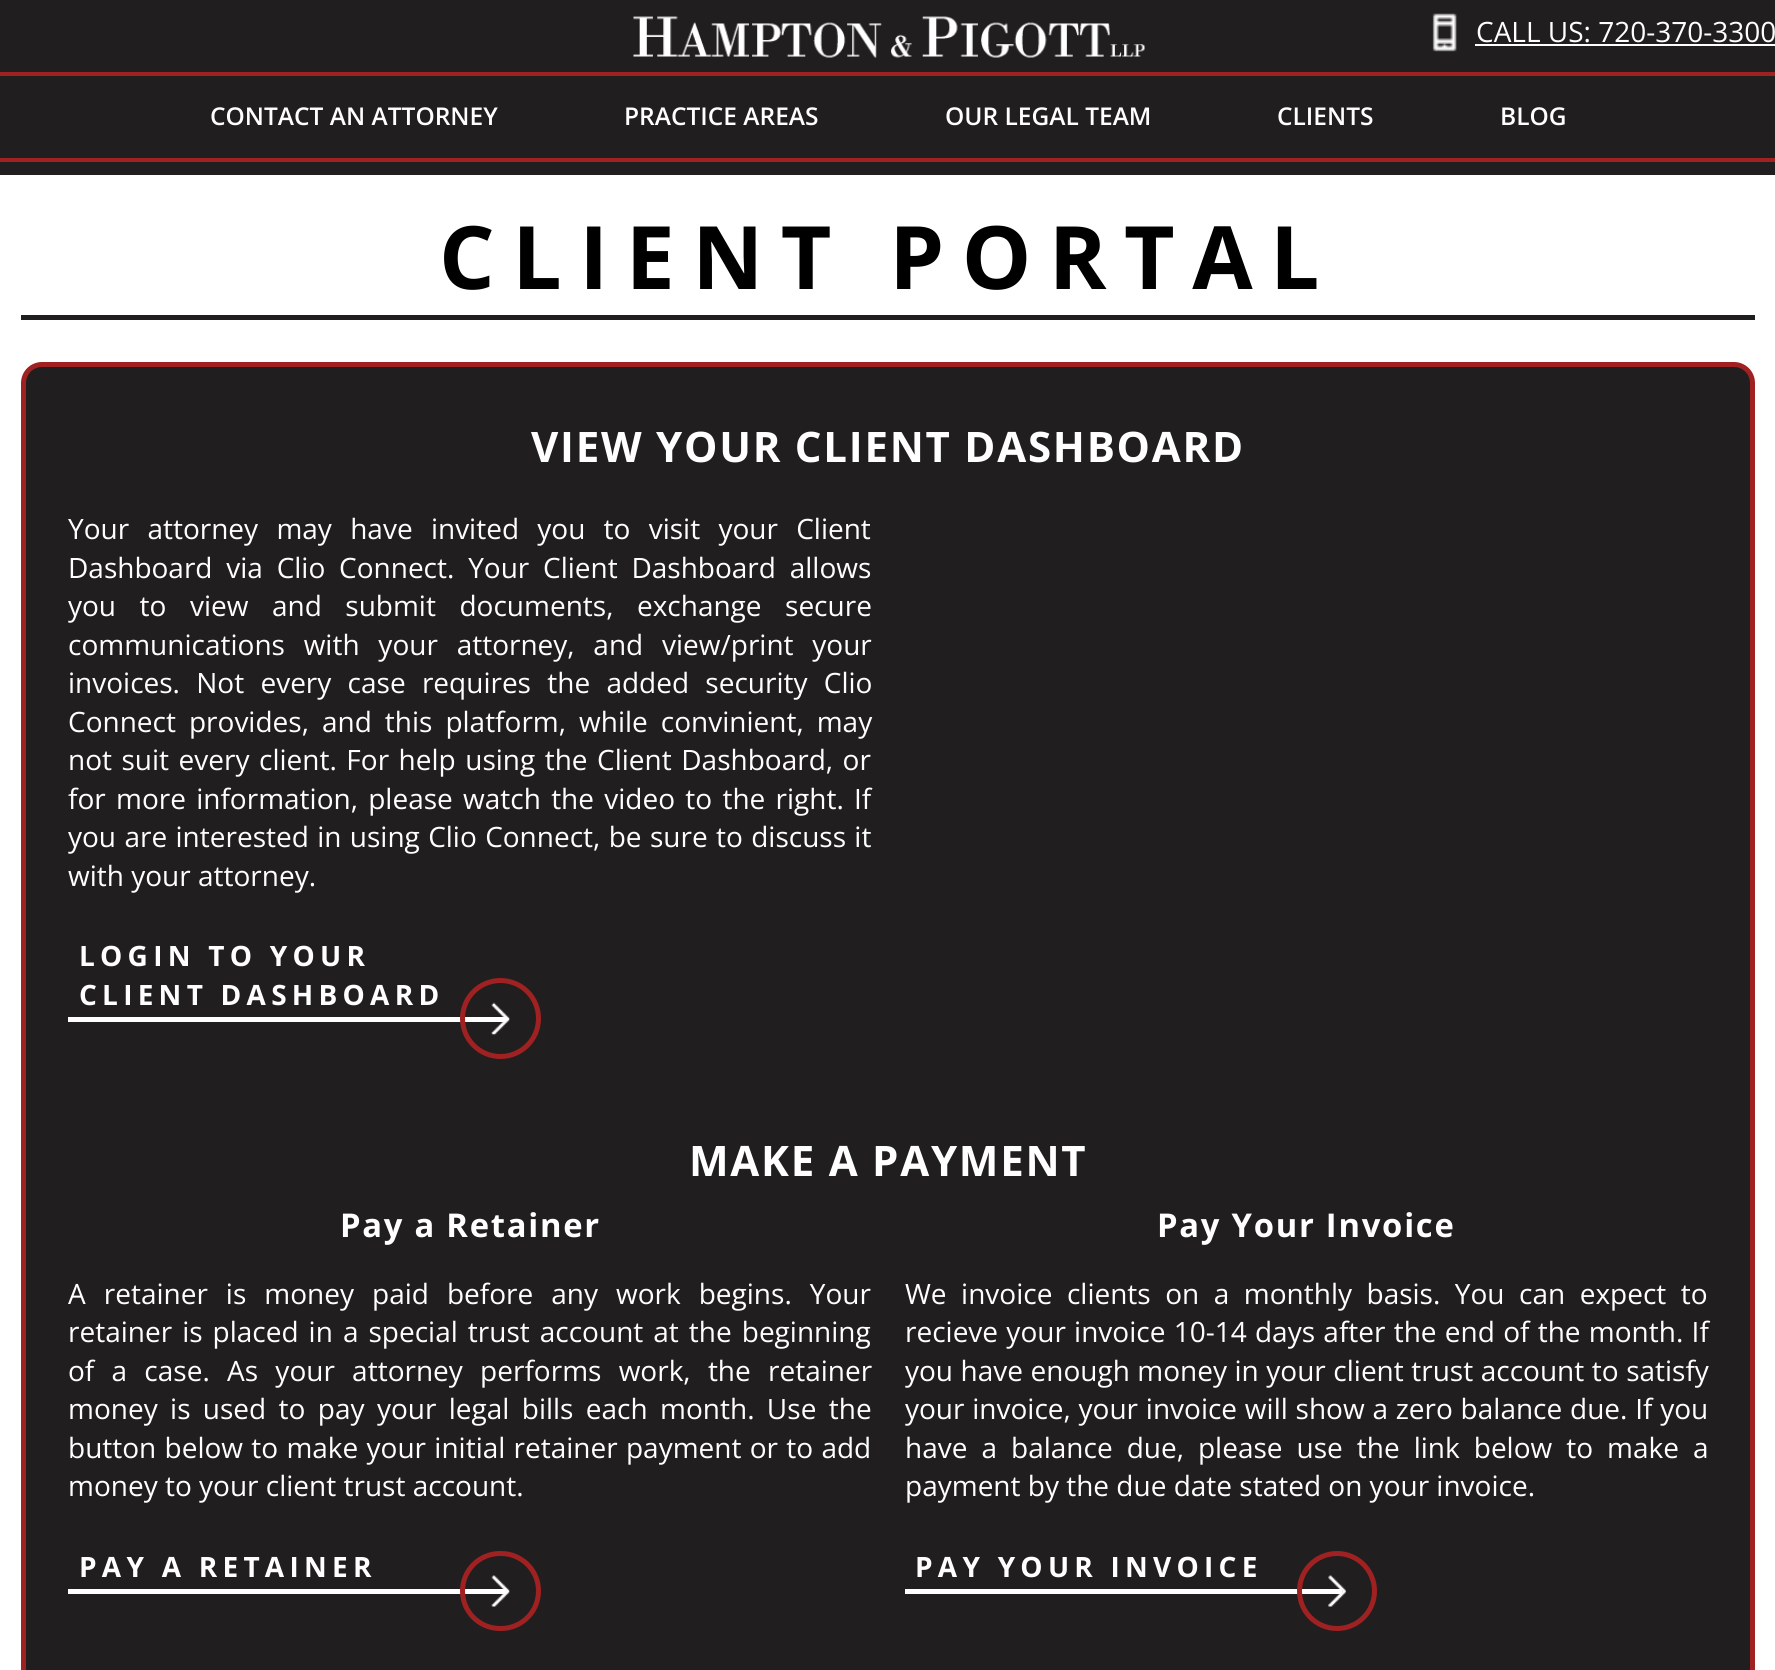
import math
import cairo


def write_spaced(ctx, x, y, s, letter, word):
	ctx.move_to(x, y)
	for ch in s:
		ctx.show_text(ch)
		ctx.rel_move_to(letter + word * (ch == ' '), 0)

def round_path(ctx, x, y, w, h, r):
	ctx.new_sub_path()
	for i, (u, v) in enumerate([(x + w - r, y + h - r), (x + r, y + h - r), (x + r, y + r), (x + w - r, y + r)]):
		ctx.arc(u, v, r, i * math.pi / 2, (i + 1) * math.pi / 2)
	ctx.close_path()

def paste(ctx, path, x, y, w, h):
	ctx.save()
	ctx.set_source_surface(cairo.ImageSurface.create_from_png(path), x, y)
	ctx.rectangle(x, y, w, h)
	ctx.fill()
	ctx.restore()

def draw(ctx):
	ctx.set_source_rgb(1, 1, 1)
	ctx.paint()
	ctx.set_source_rgb(0.129, 0.118, 0.122)
	ctx.rectangle(0, 0, 1775, 175)
	ctx.fill()
	paste(ctx, 'media/1.png', 633, 16, 512, 42)
	paste(ctx, 'media/2.png', 1432, 13, 25, 39)
	ctx.select_font_face('Open Sans')
	ctx.set_font_size(28)
	ctx.set_source_rgb(1, 1, 1)
	ctx.move_to(1476, 42)
	ctx.show_text('CALL US: 720-370-3300')
	ctx.rectangle(1475, 44, 300, 2)
	ctx.fill()
	ctx.set_source_rgb(0.627, 0.129, 0.129)
	ctx.rectangle(0, 72, 1775, 4)
	ctx.rectangle(0, 158, 1775, 4)
	ctx.fill()
	ctx.select_font_face('Open Sans SemiBold')
	ctx.set_font_size(24.5)
	ctx.set_source_rgb(1, 1, 1)
	for x, y, s in [
		(210, 125, 'CONTACT AN ATTORNEY'),
		(624, 125, 'PRACTICE AREAS'),
		(945, 125, 'OUR LEGAL TEAM'),
		(1277, 125, 'CLIENTS'),
		(1500, 125, 'BLOG'),
	]:
		ctx.move_to(x, y)
		ctx.show_text(s)
	ctx.set_source_rgb(0.129, 0.118, 0.122)
	ctx.rectangle(21, 315, 1734, 5)
	ctx.fill()
	ctx.select_font_face('Open Sans', cairo.FONT_SLANT_NORMAL, cairo.FONT_WEIGHT_BOLD)
	ctx.set_font_size(87.5)
	ctx.set_source_rgb(0, 0, 0)
	write_spaced(ctx, 439, 289, 'CLIENT PORTAL', 17.5, 0)
	ctx.set_source_rgb(0.129, 0.118, 0.122)
	round_path(ctx, 23.5, 364.5, 1729, 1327, 18.5)
	ctx.fill_preserve()
	ctx.set_source_rgb(0.627, 0.129, 0.129)
	ctx.set_line_width(5)
	ctx.stroke()
	ctx.set_font_size(42)
	ctx.set_source_rgb(1, 1, 1)
	write_spaced(ctx, 531, 462, 'VIEW YOUR CLIENT DASHBOARD', 1.75, 0)
	ctx.select_font_face('Open Sans')
	ctx.set_font_size(28)
	write_spaced(ctx, 68, 539, 'Your attorney may have invited you to visit your Client', 0, 11)
	write_spaced(ctx, 68, 578, 'Dashboard via Clio Connect. Your Client Dashboard allows', 0, 6.5)
	write_spaced(ctx, 68, 616, 'you to view and submit documents, exchange secure', 0, 16.25)
	write_spaced(ctx, 68, 655, 'communications with your attorney, and view/print your', 0, 11.5)
	write_spaced(ctx, 68, 693, 'invoices. Not every case requires the added security Clio', 0, 9)
	write_spaced(ctx, 68, 732, 'Connect provides, and this platform, while convinient, may', 0, 5.75)
	write_spaced(ctx, 68, 770, 'not suit every client. For help using the Client Dashboard, or', 0, 2.25)
	write_spaced(ctx, 68, 809, 'for more information, please watch the video to the right. If', 0, 3)
	write_spaced(ctx, 68, 847, 'you are interested in using Clio Connect, be sure to discuss it', 0, 1.1)
	ctx.move_to(68, 886)
	ctx.show_text('with your attorney.')
	ctx.rectangle(68, 1017, 438, 5)
	ctx.fill()
	ctx.select_font_face('Open Sans', cairo.FONT_SLANT_NORMAL, cairo.FONT_WEIGHT_BOLD)
	write_spaced(ctx, 79, 966, 'LOGIN TO YOUR', 5.25, 0)
	write_spaced(ctx, 79, 1005, 'CLIENT DASHBOARD', 5.25, 0)
	paste(ctx, 'media/3.png', 491, 1002, 19, 33)
	ctx.arc(500.5, 1018.5, 38, 0, 2 * math.pi)
	ctx.set_source_rgb(0.627, 0.129, 0.129)
	ctx.stroke()
	ctx.set_font_size(42)
	ctx.set_source_rgb(1, 1, 1)
	write_spaced(ctx, 689, 1176, 'MAKE A PAYMENT', 1.75, 0)
	ctx.set_font_size(32.75)
	write_spaced(ctx, 340, 1237, 'Pay a Retainer', 1.75, 0)
	ctx.select_font_face('Open Sans')
	ctx.set_font_size(28)
	write_spaced(ctx, 68, 1304, 'A retainer is money paid before any work begins. Your', 0, 10.75)
	write_spaced(ctx, 68, 1342, 'retainer is placed in a special trust account at the beginning', 0, 2.75)
	write_spaced(ctx, 68, 1381, 'of a case. As your attorney performs work, the retainer', 0, 10)
	write_spaced(ctx, 68, 1419, 'money is used to pay your legal bills each month. Use the', 0, 5.1)
	write_spaced(ctx, 68, 1458, 'button below to make your initial retainer payment or to add', 0, 1)
	ctx.move_to(68, 1496)
	ctx.show_text('money to your client trust account.')
	ctx.rectangle(68, 1589, 438, 5)
	ctx.fill()
	ctx.select_font_face('Open Sans', cairo.FONT_SLANT_NORMAL, cairo.FONT_WEIGHT_BOLD)
	write_spaced(ctx, 79, 1577, 'PAY A RETAINER', 5.25, 0)
	paste(ctx, 'media/4.png', 491, 1575, 19, 32)
	round_path(ctx, 462.5, 1553.5, 76, 75, 37.5)
	ctx.set_source_rgb(0.627, 0.129, 0.129)
	ctx.stroke()
	ctx.set_font_size(32.75)
	ctx.set_source_rgb(1, 1, 1)
	write_spaced(ctx, 1157, 1237, 'Pay Your Invoice', 1.75, 0)
	ctx.select_font_face('Open Sans')
	ctx.set_font_size(28)
	write_spaced(ctx, 905, 1304, 'We invoice clients on a monthly basis. You can expect to', 0, 7.25)
	write_spaced(ctx, 905, 1342, 'recieve your invoice 10-14 days after the end of the month. If', 0, 1)
	write_spaced(ctx, 905, 1381, 'you have enough money in your client trust account to satisfy', 0, 0.25)
	write_spaced(ctx, 905, 1419, 'your invoice, your invoice will show a zero balance due. If you', 0, 0.5)
	write_spaced(ctx, 905, 1458, 'have a balance due, please use the link below to make a', 0, 6.75)
	ctx.move_to(905, 1496)
	ctx.show_text('payment by the due date stated on your invoice.')
	ctx.rectangle(905, 1589, 437, 5)
	ctx.fill()
	ctx.select_font_face('Open Sans', cairo.FONT_SLANT_NORMAL, cairo.FONT_WEIGHT_BOLD)
	write_spaced(ctx, 915, 1577, 'PAY YOUR INVOICE', 5.25, 0)
	paste(ctx, 'media/5.png', 1328, 1575, 18, 32)
	ctx.arc(1337, 1591, 37.5, 0, 2 * math.pi)
	ctx.set_source_rgb(0.627, 0.129, 0.129)
	ctx.stroke()


surface = cairo.ImageSurface(cairo.FORMAT_RGB24, 1775, 1670)
ctx = cairo.Context(surface)
options = cairo.FontOptions()
options.set_hint_metrics(cairo.HINT_METRICS_OFF)
options.set_hint_style(cairo.HINT_STYLE_NONE)
ctx.set_font_options(options)
ctx.set_miter_limit(4)
draw(ctx)
surface.write_to_png('image.png')
